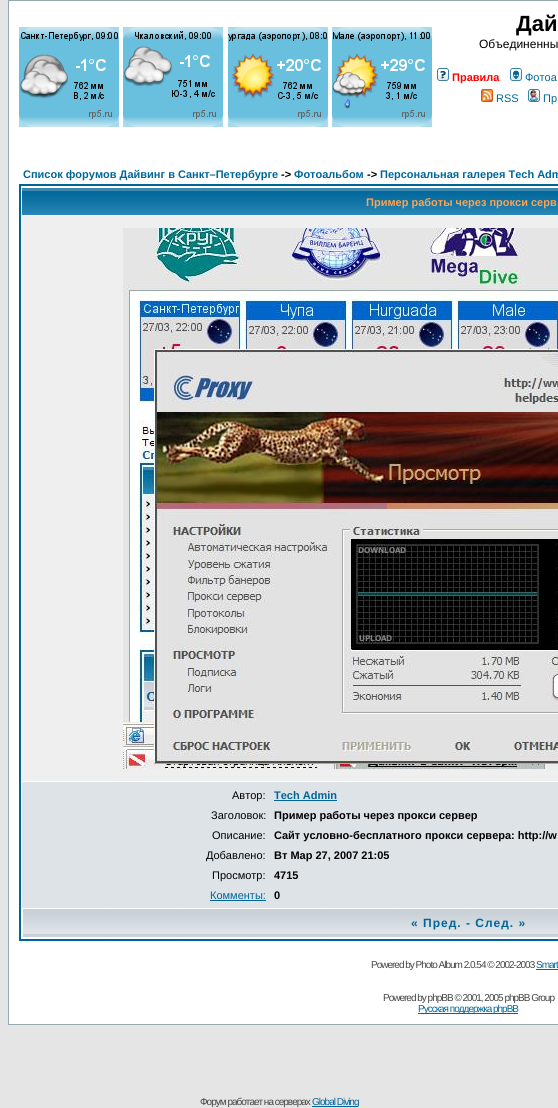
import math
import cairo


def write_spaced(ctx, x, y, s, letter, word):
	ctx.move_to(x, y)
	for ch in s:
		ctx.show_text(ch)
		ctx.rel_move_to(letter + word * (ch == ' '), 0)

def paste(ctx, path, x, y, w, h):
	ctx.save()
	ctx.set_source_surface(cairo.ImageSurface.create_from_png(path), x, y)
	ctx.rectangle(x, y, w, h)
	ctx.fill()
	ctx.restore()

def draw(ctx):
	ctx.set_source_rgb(0.898, 0.898, 0.898)
	ctx.paint()
	ctx.set_source_rgb(1, 1, 1)
	ctx.rectangle(8.5, 0.5, 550, 1024)
	ctx.fill_preserve()
	ctx.set_source_rgb(0.596, 0.667, 0.694)
	ctx.set_line_width(1)
	ctx.stroke()
	paste(ctx, 'media/1.png', 19, 27, 100, 100)
	paste(ctx, 'media/2.png', 123, 27, 100, 100)
	paste(ctx, 'media/3.png', 228, 27, 100, 100)
	paste(ctx, 'media/4.png', 332, 27, 100, 100)
	ctx.select_font_face('Liberation Sans', cairo.FONT_SLANT_NORMAL, cairo.FONT_WEIGHT_BOLD)
	ctx.set_font_size(22)
	ctx.set_source_rgb(0, 0, 0)
	ctx.move_to(516, 31)
	ctx.show_text('Дай')
	ctx.select_font_face('Liberation Sans')
	ctx.set_font_size(12)
	ctx.move_to(479, 48)
	ctx.show_text('Объединенны')
	paste(ctx, 'media/5.png', 437, 68, 12, 13)
	ctx.select_font_face('Liberation Sans', cairo.FONT_SLANT_NORMAL, cairo.FONT_WEIGHT_BOLD)
	ctx.set_font_size(11)
	ctx.set_source_rgb(1, 0, 0)
	ctx.move_to(452, 81)
	ctx.show_text('Правила')
	paste(ctx, 'media/6.png', 510, 68, 12, 13)
	ctx.select_font_face('Liberation Sans')
	ctx.set_source_rgb(0, 0.4, 0.6)
	ctx.move_to(525, 81)
	ctx.show_text('Фотоа')
	paste(ctx, 'media/7.png', 481, 89, 12, 13)
	ctx.move_to(496, 102)
	ctx.show_text('RSS')
	paste(ctx, 'media/8.png', 528, 89, 12, 13)
	ctx.move_to(543, 102)
	ctx.show_text('Пр')
	ctx.select_font_face('Liberation Sans', cairo.FONT_SLANT_NORMAL, cairo.FONT_WEIGHT_BOLD)
	ctx.move_to(23, 178)
	ctx.show_text('Список форумов Дайвинг в Санкт–Петербурге')
	ctx.set_source_rgb(0, 0, 0)
	ctx.move_to(281, 178)
	ctx.show_text('->')
	ctx.set_source_rgb(0, 0.4, 0.6)
	ctx.move_to(294, 178)
	ctx.show_text('Фотоальбом')
	ctx.set_source_rgb(0, 0, 0)
	ctx.move_to(367, 178)
	ctx.show_text('->')
	ctx.set_source_rgb(0, 0.4, 0.6)
	ctx.move_to(380, 178)
	ctx.show_text('Персональная галерея Tech Adm')
	ctx.rectangle(20, 185, 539, 755)
	ctx.set_line_width(2)
	ctx.stroke()
	paste(ctx, 'media/9.png', 22, 188, 536, 27)
	ctx.set_source_rgb(1, 0.639, 0.31)
	ctx.move_to(366, 206)
	ctx.show_text('Пример работы через прокси серв')
	ctx.set_source_rgb(0.937, 0.937, 0.937)
	ctx.rectangle(22, 216, 536, 565)
	ctx.fill()
	paste(ctx, 'media/10.png', 123, 228, 435, 541)
	ctx.set_source_rgb(0.871, 0.89, 0.906)
	ctx.rectangle(22, 782, 536, 126)
	ctx.fill()
	ctx.select_font_face('Liberation Sans')
	ctx.set_source_rgb(0, 0, 0)
	ctx.move_to(232, 799)
	ctx.show_text('Автор:')
	ctx.select_font_face('Liberation Sans', cairo.FONT_SLANT_NORMAL, cairo.FONT_WEIGHT_BOLD)
	ctx.set_source_rgb(0, 0.4, 0.6)
	ctx.move_to(274, 799)
	ctx.show_text('Tech Admin')
	ctx.rectangle(274, 800, 63, 1)
	ctx.fill()
	ctx.select_font_face('Liberation Sans')
	ctx.set_source_rgb(0, 0, 0)
	ctx.move_to(211, 819)
	ctx.show_text('Заголовок:')
	ctx.select_font_face('Liberation Sans', cairo.FONT_SLANT_NORMAL, cairo.FONT_WEIGHT_BOLD)
	ctx.move_to(274, 819)
	ctx.show_text('Пример работы через прокси сервер')
	ctx.select_font_face('Liberation Sans')
	ctx.move_to(212, 839)
	ctx.show_text('Описание:')
	ctx.select_font_face('Liberation Sans', cairo.FONT_SLANT_NORMAL, cairo.FONT_WEIGHT_BOLD)
	ctx.move_to(274, 839)
	ctx.show_text('Сайт условно-бесплатного прокси сервера: http://w')
	ctx.select_font_face('Liberation Sans')
	ctx.move_to(206, 859)
	ctx.show_text('Добавлено:')
	ctx.select_font_face('Liberation Sans', cairo.FONT_SLANT_NORMAL, cairo.FONT_WEIGHT_BOLD)
	ctx.move_to(274, 859)
	ctx.show_text('Вт Мар 27, 2007 21:05')
	ctx.select_font_face('Liberation Sans')
	ctx.move_to(212, 879)
	ctx.show_text('Просмотр:')
	ctx.select_font_face('Liberation Sans', cairo.FONT_SLANT_NORMAL, cairo.FONT_WEIGHT_BOLD)
	ctx.move_to(274, 879)
	ctx.show_text('4715')
	ctx.select_font_face('Liberation Sans')
	ctx.set_source_rgb(0, 0.4, 0.6)
	ctx.move_to(210, 899)
	ctx.show_text('Комменты:')
	ctx.rectangle(210, 900, 56, 1)
	ctx.fill()
	ctx.select_font_face('Liberation Sans', cairo.FONT_SLANT_NORMAL, cairo.FONT_WEIGHT_BOLD)
	ctx.set_source_rgb(0, 0, 0)
	ctx.move_to(274, 899)
	ctx.show_text('0')
	paste(ctx, 'media/11.png', 23, 909, 535, 28)
	ctx.set_font_size(12)
	ctx.set_source_rgb(0, 0.4, 0.6)
	write_spaced(ctx, 411, 927, '« Пред. - След. »', 1, 0)
	ctx.select_font_face('Liberation Sans')
	ctx.set_font_size(10)
	ctx.set_source_rgb(0.267, 0.267, 0.267)
	write_spaced(ctx, 371, 968, 'Powered by Photo Album 2.0.54 © 2002-2003', -1, 0)
	ctx.set_source_rgb(0, 0.4, 0.6)
	write_spaced(ctx, 536, 968, 'Smart', -1, 0)
	ctx.rectangle(536, 969, 22, 1)
	ctx.fill()
	ctx.set_source_rgb(0.267, 0.267, 0.267)
	write_spaced(ctx, 383, 1001, 'Powered by phpBB © 2001, 2005 phpBB Group', -1, 0)
	ctx.set_source_rgb(0, 0.4, 0.6)
	ctx.rectangle(418, 1013, 100, 1)
	ctx.fill()
	write_spaced(ctx, 418, 1012, 'Русская поддержка phpBB', -1, 0)
	ctx.set_source_rgb(0.267, 0.267, 0.267)
	write_spaced(ctx, 200, 1105, 'Форум работает на серверах', -1, 0)
	ctx.set_source_rgb(0, 0.4, 0.6)
	ctx.rectangle(312, 1106, 46, 1)
	ctx.fill()
	write_spaced(ctx, 312, 1105, 'Global Diving', -1, 0)


surface = cairo.ImageSurface(cairo.FORMAT_RGB24, 558, 1108)
ctx = cairo.Context(surface)
options = cairo.FontOptions()
options.set_hint_metrics(cairo.HINT_METRICS_OFF)
options.set_hint_style(cairo.HINT_STYLE_NONE)
ctx.set_font_options(options)
ctx.set_miter_limit(4)
draw(ctx)
surface.write_to_png('image.png')
